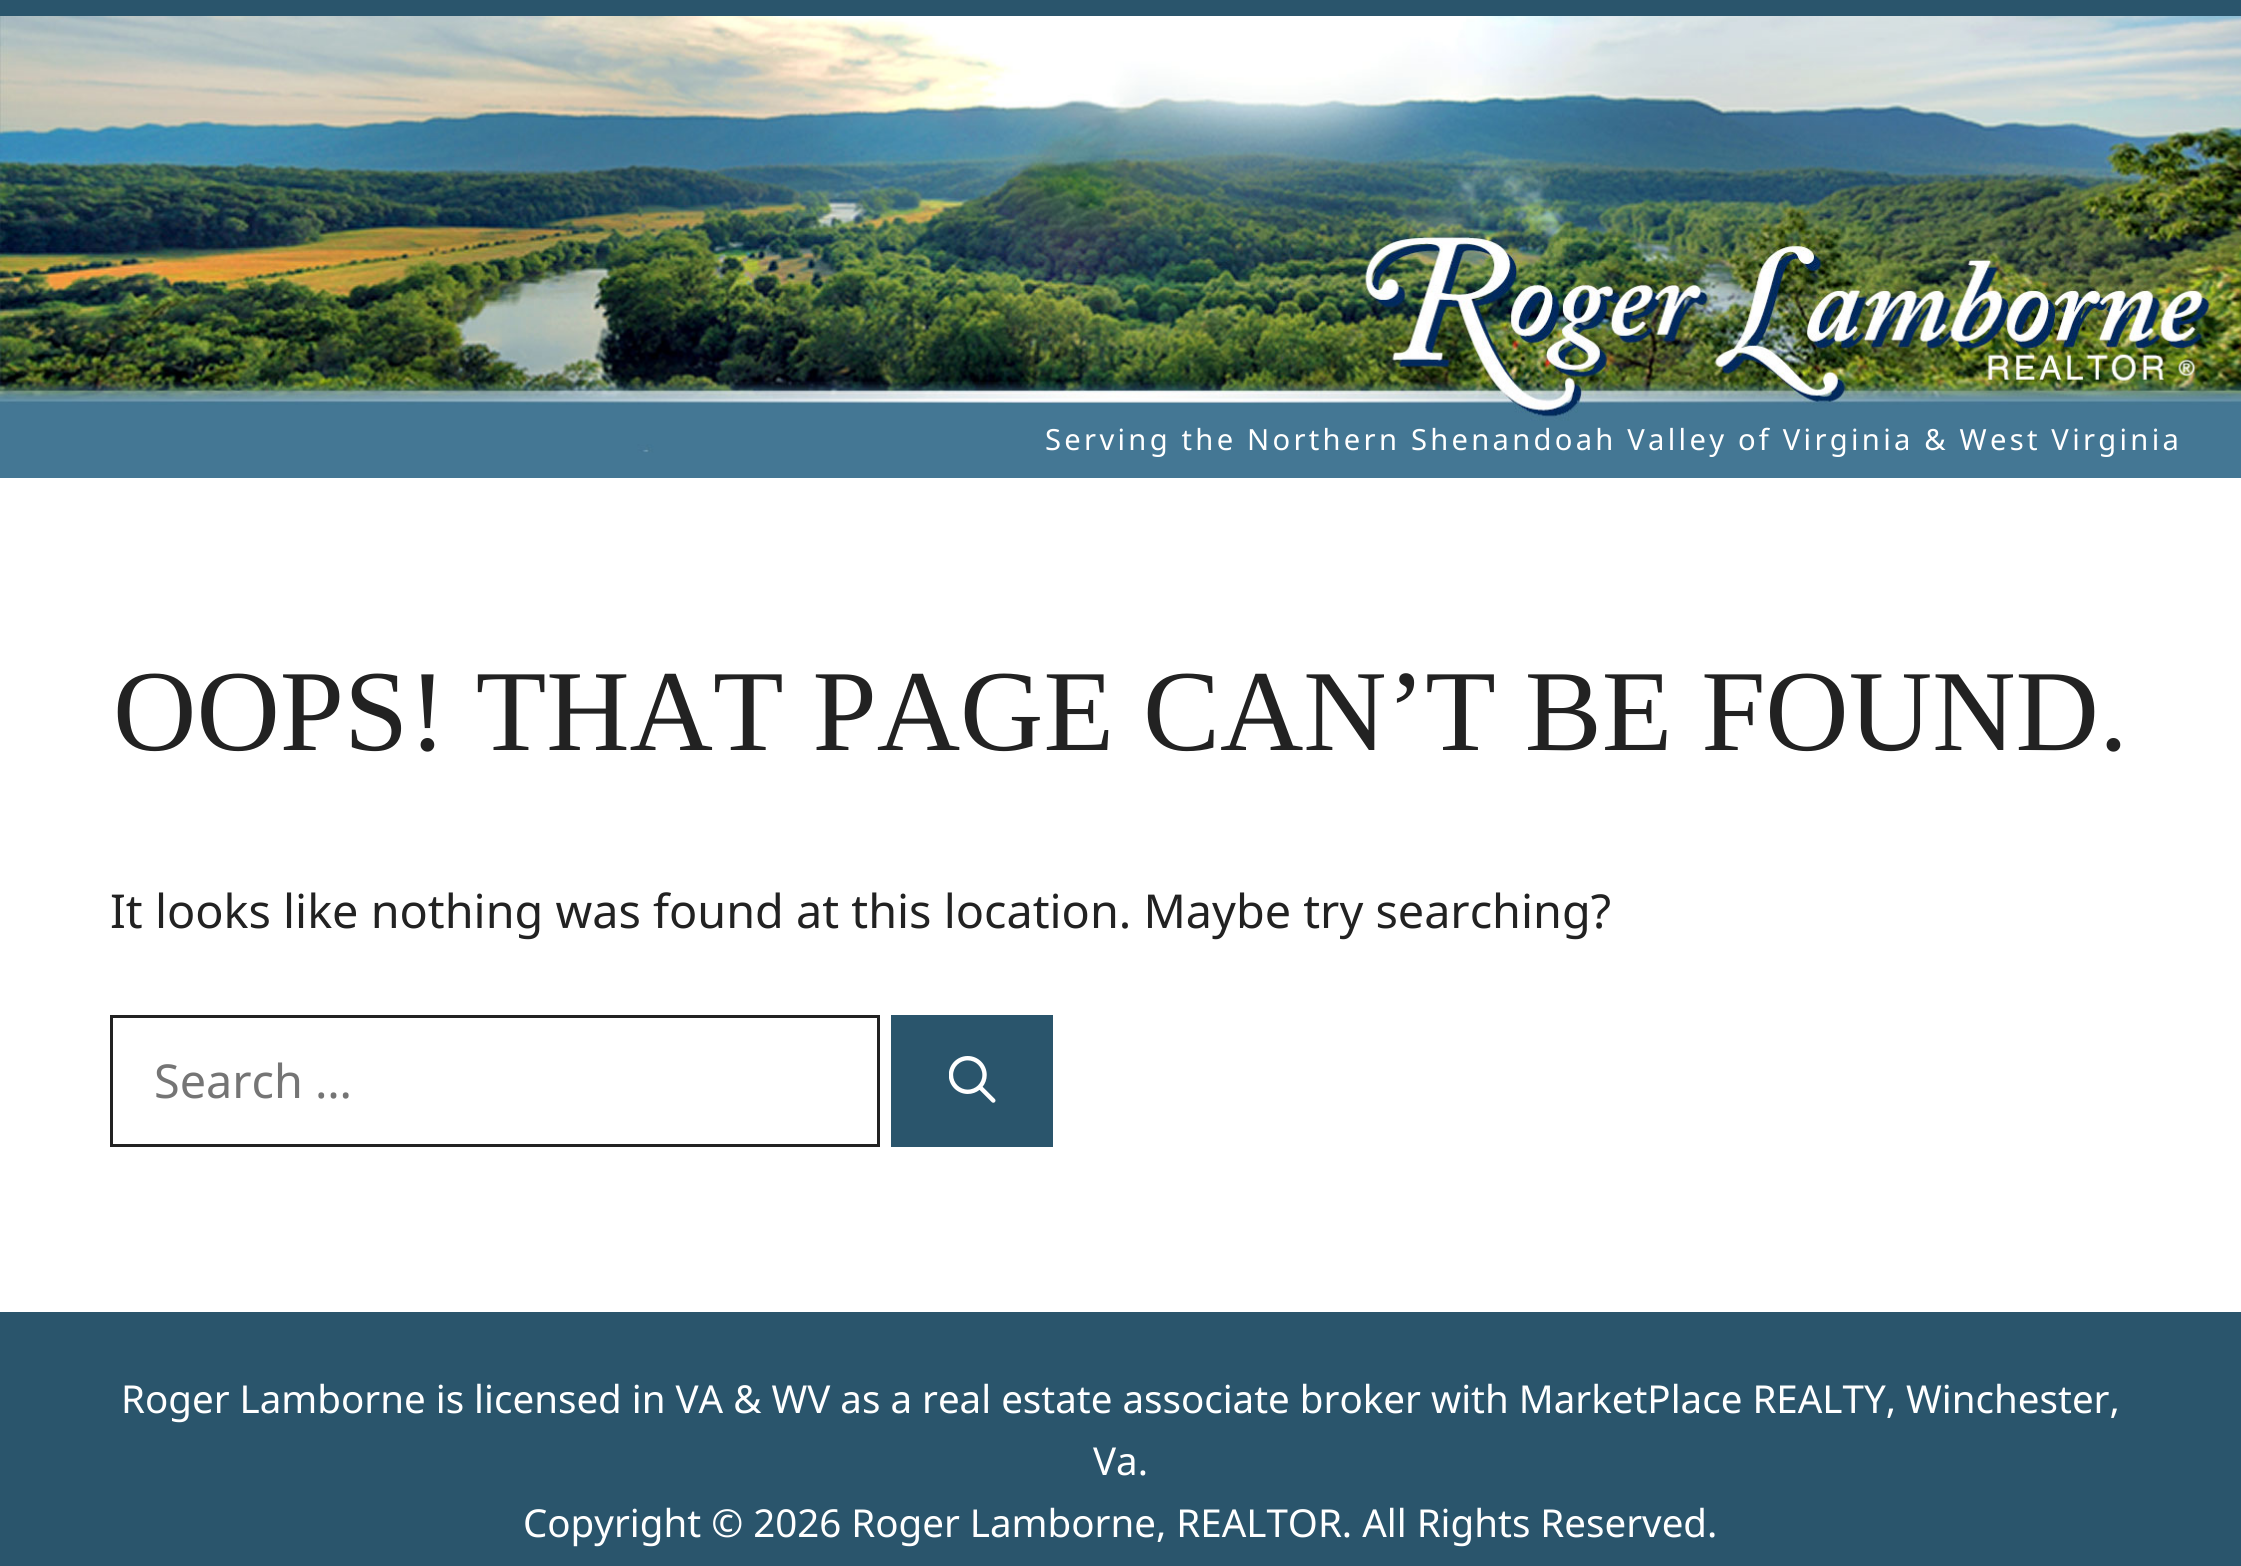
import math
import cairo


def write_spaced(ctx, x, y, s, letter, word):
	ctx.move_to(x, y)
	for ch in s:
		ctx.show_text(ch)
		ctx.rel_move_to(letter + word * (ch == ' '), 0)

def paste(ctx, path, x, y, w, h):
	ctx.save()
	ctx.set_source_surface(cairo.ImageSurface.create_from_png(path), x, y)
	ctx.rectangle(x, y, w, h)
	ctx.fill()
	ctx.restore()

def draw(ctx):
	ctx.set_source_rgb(1, 1, 1)
	ctx.paint()
	ctx.set_source_rgb(0.165, 0.333, 0.424)
	ctx.rectangle(0, 0, 2241, 16)
	ctx.fill()
	paste(ctx, 'media/1.png', 0, 16, 2241, 462)
	ctx.select_font_face('Noto Sans')
	ctx.set_font_size(29.15)
	ctx.set_source_rgb(1, 1, 1)
	write_spaced(ctx, 1045, 450, 'Serving the Northern Shenandoah Valley of Virginia & West Virginia', 3.3, -0.25)
	ctx.select_font_face('Liberation Serif')
	ctx.set_font_size(115.5)
	ctx.set_source_rgb(0.133, 0.133, 0.133)
	ctx.move_to(113, 750)
	ctx.show_text('OOPS! THAT PAGE CAN’T BE FOUND.')
	ctx.select_font_face('Noto Sans')
	ctx.set_font_size(46.75)
	ctx.move_to(110, 928)
	ctx.show_text('It looks like nothing was found at this location. Maybe try searching?')
	ctx.rectangle(111.5, 1016.5, 767, 129)
	ctx.set_line_width(3)
	ctx.stroke()
	ctx.set_source_rgb(0.459, 0.459, 0.459)
	ctx.move_to(154, 1098)
	ctx.show_text('Search …')
	ctx.set_source_rgb(0.165, 0.333, 0.424)
	ctx.rectangle(891, 1015, 162, 132)
	ctx.fill()
	paste(ctx, 'media/2.png', 949, 1056, 47, 47)
	ctx.rectangle(0, 1312, 2241, 254)
	ctx.fill()
	ctx.set_font_size(38.5)
	ctx.set_source_rgb(1, 1, 1)
	for x, y, s in [
		(121, 1413, 'Roger Lamborne is licensed in VA & WV as a real estate associate broker with MarketPlace REALTY, Winchester,'),
		(1093, 1475, 'Va.'),
		(523, 1537, 'Copyright © 2026 Roger Lamborne, REALTOR. All Rights Reserved.'),
	]:
		ctx.move_to(x, y)
		ctx.show_text(s)


surface = cairo.ImageSurface(cairo.FORMAT_RGB24, 2241, 1566)
ctx = cairo.Context(surface)
options = cairo.FontOptions()
options.set_hint_metrics(cairo.HINT_METRICS_OFF)
options.set_hint_style(cairo.HINT_STYLE_NONE)
ctx.set_font_options(options)
ctx.set_miter_limit(4)
draw(ctx)
surface.write_to_png('image.png')
